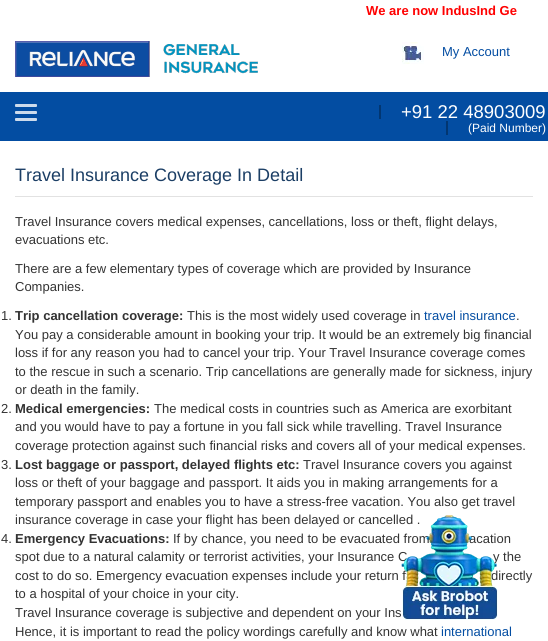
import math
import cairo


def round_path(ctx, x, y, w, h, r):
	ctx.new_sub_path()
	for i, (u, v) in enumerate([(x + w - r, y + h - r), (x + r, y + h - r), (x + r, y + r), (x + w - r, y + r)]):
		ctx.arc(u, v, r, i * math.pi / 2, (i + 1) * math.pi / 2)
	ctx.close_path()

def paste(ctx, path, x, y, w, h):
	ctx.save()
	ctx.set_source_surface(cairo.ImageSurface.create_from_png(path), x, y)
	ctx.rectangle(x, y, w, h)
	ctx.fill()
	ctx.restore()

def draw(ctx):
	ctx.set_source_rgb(1, 1, 1)
	ctx.paint()
	ctx.select_font_face('Liberation Sans', cairo.FONT_SLANT_NORMAL, cairo.FONT_WEIGHT_BOLD)
	ctx.set_font_size(13)
	ctx.set_source_rgb(1, 0, 0)
	ctx.move_to(366, 15)
	ctx.show_text('We are now IndusInd Ge')
	paste(ctx, 'media/1.png', 15, 41, 243, 36)
	paste(ctx, 'media/2.png', 402, 42, 22, 22)
	ctx.select_font_face('Liberation Sans')
	ctx.set_source_rgb(0.012, 0.302, 0.635)
	ctx.move_to(442, 56)
	ctx.show_text('My Account')
	ctx.rectangle(0, 92, 548, 49)
	ctx.fill()
	ctx.set_source_rgb(0.804, 0.859, 0.925)
	round_path(ctx, 15, 104, 22, 3, 1)
	ctx.fill()
	round_path(ctx, 15, 111, 22, 3, 1)
	ctx.fill()
	round_path(ctx, 15, 118, 22, 3, 1)
	ctx.fill()
	ctx.set_source_rgb(0.008, 0.212, 0.443)
	ctx.rectangle(379, 105, 2, 14)
	ctx.fill()
	ctx.set_font_size(18.5)
	ctx.set_source_rgb(1, 1, 1)
	ctx.move_to(401, 118)
	ctx.show_text('+91 22 48903009')
	ctx.set_font_size(12)
	ctx.move_to(468, 132)
	ctx.show_text('(Paid Number)')
	ctx.set_source_rgb(0.008, 0.212, 0.443)
	ctx.rectangle(446, 121, 2, 14)
	ctx.fill()
	ctx.set_source_rgb(0.886, 0.886, 0.886)
	ctx.rectangle(15, 196, 518, 1)
	ctx.fill()
	ctx.set_font_size(18)
	ctx.set_source_rgb(0.106, 0.243, 0.396)
	ctx.move_to(15, 181)
	ctx.show_text('Travel Insurance Coverage In Detail')
	ctx.set_font_size(13)
	ctx.set_source_rgb(0.2, 0.2, 0.2)
	for x, y, s in [
		(15, 226, 'Travel Insurance covers medical expenses, cancellations, loss or theft, flight delays,'),
		(15, 244, 'evacuations etc.'),
		(15, 273, 'There are a few elementary types of coverage which are provided by Insurance'),
		(15, 291, 'Companies.'),
		(1, 320, '1.'),
	]:
		ctx.move_to(x, y)
		ctx.show_text(s)
	ctx.select_font_face('Liberation Sans', cairo.FONT_SLANT_NORMAL, cairo.FONT_WEIGHT_BOLD)
	ctx.move_to(15, 320)
	ctx.show_text('Trip cancellation coverage:')
	ctx.select_font_face('Liberation Sans')
	ctx.move_to(187, 320)
	ctx.show_text('This is the most widely used coverage in')
	ctx.set_source_rgb(0.012, 0.302, 0.635)
	ctx.move_to(424, 320)
	ctx.show_text('travel insurance')
	ctx.set_source_rgb(0.2, 0.2, 0.2)
	for x, y, s in [
		(516, 320, '.'),
		(15, 339, 'You pay a considerable amount in booking your trip. It would be an extremely big financial'),
		(15, 357, 'loss if for any reason you had to cancel your trip. Your Travel Insurance coverage comes'),
		(15, 376, 'to the rescue in such a scenario. Trip cancellations are generally made for sickness, injury'),
		(15, 394, 'or death in the family.'),
		(1, 413, '2.'),
	]:
		ctx.move_to(x, y)
		ctx.show_text(s)
	ctx.select_font_face('Liberation Sans', cairo.FONT_SLANT_NORMAL, cairo.FONT_WEIGHT_BOLD)
	ctx.move_to(15, 413)
	ctx.show_text('Medical emergencies:')
	ctx.select_font_face('Liberation Sans')
	for x, y, s in [
		(154, 413, 'The medical costs in countries such as America are exorbitant'),
		(15, 431, 'and you would have to pay a fortune in you fall sick while travelling. Travel Insurance'),
		(15, 450, 'coverage protection against such financial risks and covers all of your medical expenses.'),
		(1, 469, '3.'),
	]:
		ctx.move_to(x, y)
		ctx.show_text(s)
	ctx.select_font_face('Liberation Sans', cairo.FONT_SLANT_NORMAL, cairo.FONT_WEIGHT_BOLD)
	ctx.move_to(15, 469)
	ctx.show_text('Lost baggage or passport, delayed flights etc:')
	ctx.select_font_face('Liberation Sans')
	for x, y, s in [
		(303, 469, 'Travel Insurance covers you against'),
		(15, 487, 'loss or theft of your baggage and passport. It aids you in making arrangements for a'),
		(15, 506, 'temporary passport and enables you to have a stress-free vacation. You also get travel'),
		(15, 524, 'insurance coverage in case your flight has been delayed or cancelled .'),
		(1, 543, '4.'),
	]:
		ctx.move_to(x, y)
		ctx.show_text(s)
	ctx.select_font_face('Liberation Sans', cairo.FONT_SLANT_NORMAL, cairo.FONT_WEIGHT_BOLD)
	ctx.move_to(15, 543)
	ctx.show_text('Emergency Evacuations:')
	ctx.select_font_face('Liberation Sans')
	for x, y, s in [
		(173, 543, 'If by chance, you need to be evacuated from'),
		(469, 543, 'acation'),
		(15, 561, 'spot due to a natural calamity or terrorist activities, your Insurance C'),
		(493, 561, 'y the'),
		(15, 580, 'cost to do so. Emergency evacuation expenses include your return f'),
		(491, 580, 'directly'),
		(15, 598, 'to a hospital of your choice in your city.'),
		(15, 617, 'Travel Insurance coverage is subjective and dependent on your Ins'),
		(15, 636, 'Hence, it is important to read the policy wordings carefully and know what'),
	]:
		ctx.move_to(x, y)
		ctx.show_text(s)
	ctx.set_source_rgb(0.012, 0.302, 0.635)
	ctx.move_to(441, 636)
	ctx.show_text('international')
	paste(ctx, 'media/3.png', 401, 515, 97, 105)


surface = cairo.ImageSurface(cairo.FORMAT_RGB24, 548, 641)
ctx = cairo.Context(surface)
options = cairo.FontOptions()
options.set_hint_metrics(cairo.HINT_METRICS_OFF)
options.set_hint_style(cairo.HINT_STYLE_NONE)
ctx.set_font_options(options)
ctx.set_miter_limit(4)
draw(ctx)
surface.write_to_png('image.png')
